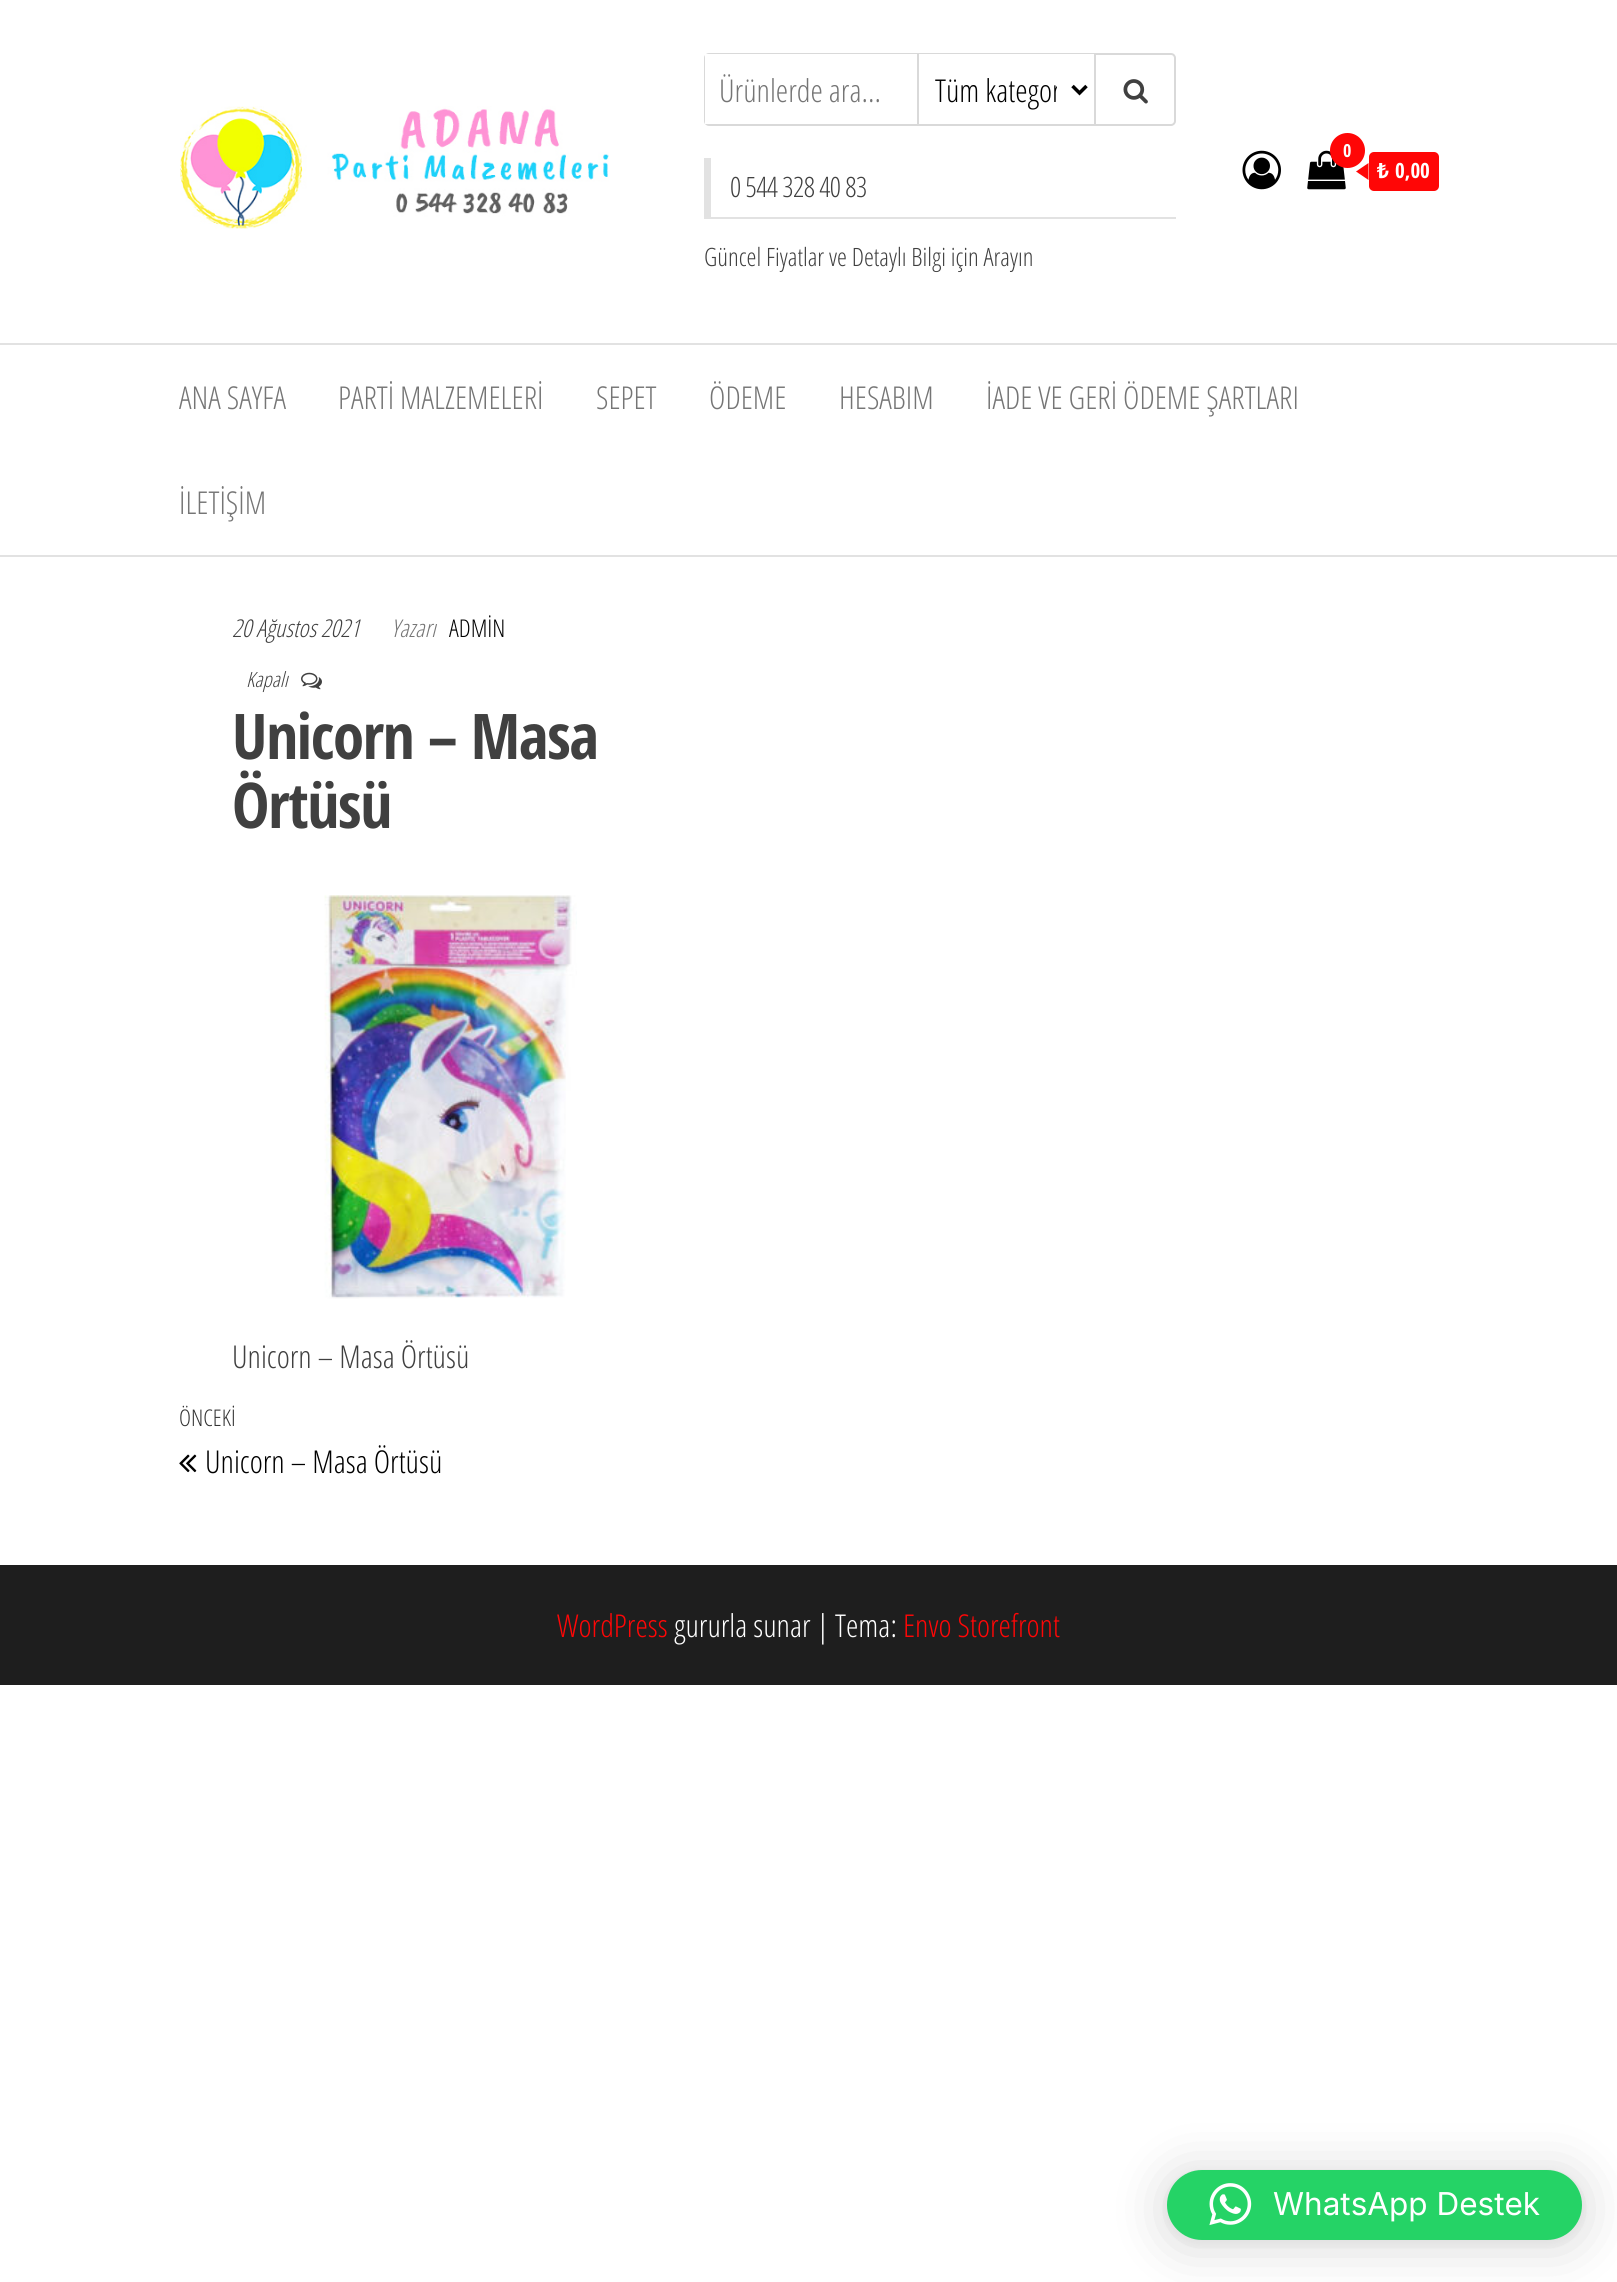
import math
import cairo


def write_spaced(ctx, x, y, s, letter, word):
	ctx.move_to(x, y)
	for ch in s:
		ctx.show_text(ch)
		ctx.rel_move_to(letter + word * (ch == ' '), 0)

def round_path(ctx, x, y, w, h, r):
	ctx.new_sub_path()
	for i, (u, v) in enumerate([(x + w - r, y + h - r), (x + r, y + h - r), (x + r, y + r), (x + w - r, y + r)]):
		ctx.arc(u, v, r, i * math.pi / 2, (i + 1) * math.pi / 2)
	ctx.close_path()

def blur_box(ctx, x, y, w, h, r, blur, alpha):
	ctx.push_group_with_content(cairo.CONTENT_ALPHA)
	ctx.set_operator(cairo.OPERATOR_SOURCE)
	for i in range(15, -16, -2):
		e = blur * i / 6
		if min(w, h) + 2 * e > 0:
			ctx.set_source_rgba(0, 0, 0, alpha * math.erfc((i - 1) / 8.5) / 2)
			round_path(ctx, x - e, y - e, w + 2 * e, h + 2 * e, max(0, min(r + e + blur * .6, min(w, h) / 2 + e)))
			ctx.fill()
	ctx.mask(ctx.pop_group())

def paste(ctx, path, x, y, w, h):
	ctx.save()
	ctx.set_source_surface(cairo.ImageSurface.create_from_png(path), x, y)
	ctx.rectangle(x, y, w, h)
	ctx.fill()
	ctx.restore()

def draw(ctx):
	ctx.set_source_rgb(1, 1, 1)
	ctx.paint()
	paste(ctx, 'media/1.png', 180, 106, 429, 123)
	round_path(ctx, 705, 54, 470, 71, 4)
	ctx.set_source_rgb(0.851, 0.851, 0.851)
	ctx.stroke()
	ctx.set_source_rgb(1, 1, 1)
	ctx.rectangle(705, 54, 212, 70)
	ctx.fill()
	ctx.set_source_rgb(0.851, 0.851, 0.851)
	ctx.rectangle(917, 54, 2, 70)
	ctx.fill()
	ctx.select_font_face('Open Sans Condensed Light')
	ctx.set_font_size(31.5)
	ctx.set_source_rgb(0.459, 0.459, 0.459)
	ctx.move_to(719, 102)
	ctx.show_text('Ürünlerde ara...')
	ctx.set_source_rgb(1, 1, 1)
	ctx.rectangle(919, 54, 175, 1)
	ctx.fill()
	ctx.new_path()
	ctx.move_to(1072.5, 86)
	ctx.line_to(1079.5, 93)
	ctx.line_to(1086.5, 86)
	ctx.set_source_rgb(0, 0, 0)
	ctx.set_line_width(3.5)
	ctx.stroke()
	ctx.save()
	ctx.rectangle(935, 67, 122, 45)
	ctx.clip()
	ctx.move_to(935, 102)
	ctx.show_text('Tüm kategor')
	ctx.restore()
	ctx.set_source_rgb(0.851, 0.851, 0.851)
	ctx.rectangle(1094, 54, 2, 70)
	ctx.fill()
	paste(ctx, 'media/2.png', 1123, 79, 25, 25)
	ctx.set_source_rgb(0.886, 0.886, 0.886)
	ctx.rectangle(704, 217, 472, 2)
	ctx.fill()
	ctx.rectangle(704, 158, 7, 59)
	ctx.fill()
	ctx.set_font_size(28)
	ctx.set_source_rgb(0.251, 0.251, 0.251)
	write_spaced(ctx, 730, 197, '0 544 328 40 83', -0.5, 0)
	ctx.set_font_size(25.25)
	ctx.move_to(704, 266)
	ctx.show_text('Güncel Fiyatlar ve Detaylı Bilgi için Arayın')
	paste(ctx, 'media/3.png', 1242, 150, 39, 40)
	paste(ctx, 'media/4.png', 1307, 150, 39, 40)
	ctx.set_source_rgb(1, 0.027, 0.027)
	ctx.arc(1347.5, 150.5, 17.5, 0, 2 * math.pi)
	ctx.fill()
	ctx.select_font_face('Open Sans Condensed', cairo.FONT_SLANT_NORMAL, cairo.FONT_WEIGHT_BOLD)
	ctx.set_font_size(18)
	ctx.set_source_rgb(1, 1, 1)
	ctx.move_to(1343, 157)
	ctx.show_text('0')
	ctx.set_source_rgb(1, 0.027, 0.027)
	round_path(ctx, 1369, 152, 70, 39, 5)
	ctx.fill()
	ctx.new_path()
	ctx.move_to(1368.5, 163)
	ctx.line_to(1368.5, 180)
	ctx.line_to(1356, 171.5)
	ctx.close_path()
	ctx.fill()
	ctx.select_font_face('Noto Sans', cairo.FONT_SLANT_NORMAL, cairo.FONT_WEIGHT_BOLD)
	ctx.set_font_size(21)
	ctx.set_source_rgb(1, 1, 1)
	ctx.move_to(1377, 178)
	ctx.show_text('₺')
	ctx.select_font_face('Open Sans Condensed', cairo.FONT_SLANT_NORMAL, cairo.FONT_WEIGHT_BOLD)
	ctx.move_to(1395, 178)
	ctx.show_text('0,00')
	ctx.set_source_rgb(0.886, 0.886, 0.886)
	ctx.rectangle(0, 343, 1617, 2)
	ctx.fill()
	ctx.rectangle(0, 555, 1617, 2)
	ctx.fill()
	ctx.select_font_face('Open Sans Condensed Light')
	ctx.set_font_size(31.5)
	ctx.set_source_rgb(0.459, 0.459, 0.459)
	for x, y, s in [
		(179, 409, 'ANA SAYFA'),
		(338, 409, 'PARTİ MALZEMELERİ'),
		(596, 409, 'SEPET'),
		(709, 409, 'ÖDEME'),
		(839, 409, 'HESABIM'),
		(986, 409, 'İADE VE GERİ ÖDEME ŞARTLARI'),
		(179, 514, 'İLETİŞİM'),
	]:
		ctx.move_to(x, y)
		ctx.show_text(s)
	ctx.select_font_face('Open Sans Condensed Light', cairo.FONT_SLANT_ITALIC)
	ctx.set_font_size(24.5)
	ctx.set_source_rgb(0.251, 0.251, 0.251)
	ctx.move_to(232, 637)
	ctx.show_text('20 Ağustos 2021')
	ctx.set_source_rgb(0.459, 0.459, 0.459)
	ctx.move_to(391, 637)
	ctx.show_text('Yazarı')
	ctx.select_font_face('Open Sans Condensed Light')
	ctx.set_source_rgb(0, 0, 0)
	ctx.move_to(449, 637)
	ctx.show_text('ADMİN')
	ctx.select_font_face('Open Sans Condensed Light', cairo.FONT_SLANT_ITALIC)
	ctx.set_font_size(21)
	ctx.set_source_rgb(0.251, 0.251, 0.251)
	ctx.move_to(246, 687)
	ctx.show_text('Kapalı')
	paste(ctx, 'media/5.png', 301, 672, 21, 18)
	ctx.select_font_face('Open Sans Condensed', cairo.FONT_SLANT_NORMAL, cairo.FONT_WEIGHT_BOLD)
	ctx.set_font_size(63)
	write_spaced(ctx, 232, 759, 'Unicorn – Masa', -1.25, 0)
	write_spaced(ctx, 232, 828, 'Örtüsü', -1.25, 0)
	paste(ctx, 'media/6.png', 324, 895, 253, 404)
	ctx.select_font_face('Open Sans Condensed Light')
	ctx.set_font_size(31.5)
	ctx.move_to(232, 1368)
	ctx.show_text('Unicorn – Masa Örtüsü')
	ctx.set_font_size(23)
	ctx.set_source_rgb(0.2, 0.2, 0.2)
	ctx.move_to(179, 1426)
	ctx.show_text('ÖNCEKİ')
	paste(ctx, 'media/7.png', 179, 1454, 18, 19)
	ctx.set_font_size(31.5)
	ctx.set_source_rgb(0, 0, 0)
	ctx.move_to(205, 1473)
	ctx.show_text('Unicorn – Masa Örtüsü')
	ctx.set_source_rgb(0.118, 0.118, 0.118)
	ctx.rectangle(0, 1565, 1617, 120)
	ctx.fill()
	ctx.set_source_rgb(1, 0.027, 0.027)
	ctx.move_to(557, 1637)
	ctx.show_text('WordPress')
	ctx.set_source_rgb(1, 1, 1)
	ctx.move_to(674, 1637)
	ctx.show_text('gururla sunar | Tema:')
	ctx.set_source_rgb(1, 0.027, 0.027)
	ctx.move_to(903, 1637)
	ctx.show_text('Envo Storefront')
	ctx.set_source_rgb(0, 0, 0)
	blur_box(ctx, 1167, 2174, 415, 70, 35, 28, 0.16)
	blur_box(ctx, 1167, 2172, 415, 70, 35, 5, 0.06)
	ctx.set_source_rgb(0.145, 0.827, 0.4)
	round_path(ctx, 1167, 2170, 415, 70, 35)
	ctx.fill()
	paste(ctx, 'media/8.png', 1209, 2183, 43, 43)
	ctx.select_font_face('Inter')
	ctx.set_source_rgb(1, 1, 1)
	ctx.move_to(1273, 2215)
	ctx.show_text('WhatsApp Destek')


surface = cairo.ImageSurface(cairo.FORMAT_RGB24, 1617, 2282)
ctx = cairo.Context(surface)
options = cairo.FontOptions()
options.set_hint_metrics(cairo.HINT_METRICS_OFF)
options.set_hint_style(cairo.HINT_STYLE_NONE)
ctx.set_font_options(options)
ctx.set_miter_limit(4)
draw(ctx)
surface.write_to_png('image.png')
